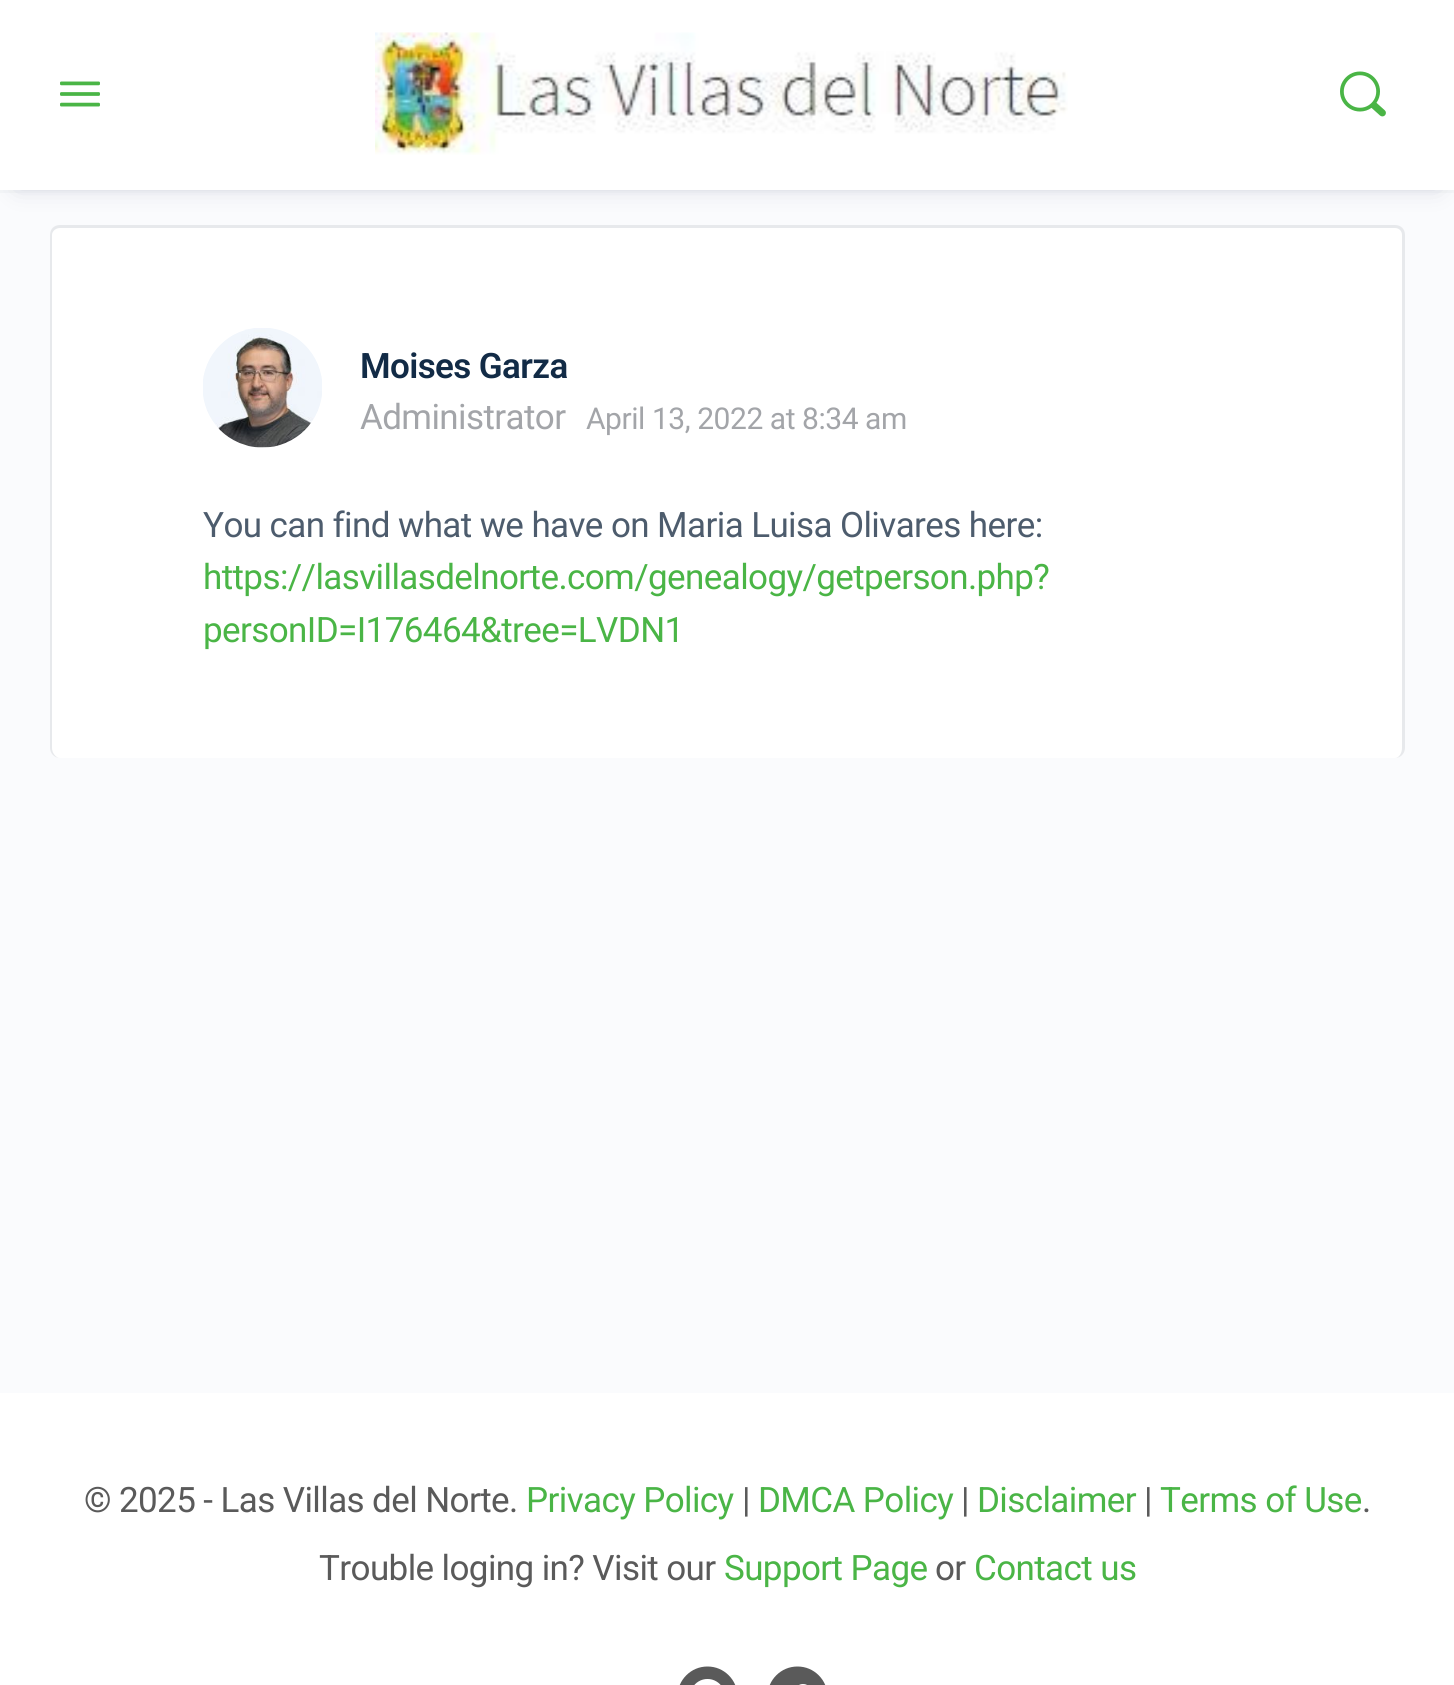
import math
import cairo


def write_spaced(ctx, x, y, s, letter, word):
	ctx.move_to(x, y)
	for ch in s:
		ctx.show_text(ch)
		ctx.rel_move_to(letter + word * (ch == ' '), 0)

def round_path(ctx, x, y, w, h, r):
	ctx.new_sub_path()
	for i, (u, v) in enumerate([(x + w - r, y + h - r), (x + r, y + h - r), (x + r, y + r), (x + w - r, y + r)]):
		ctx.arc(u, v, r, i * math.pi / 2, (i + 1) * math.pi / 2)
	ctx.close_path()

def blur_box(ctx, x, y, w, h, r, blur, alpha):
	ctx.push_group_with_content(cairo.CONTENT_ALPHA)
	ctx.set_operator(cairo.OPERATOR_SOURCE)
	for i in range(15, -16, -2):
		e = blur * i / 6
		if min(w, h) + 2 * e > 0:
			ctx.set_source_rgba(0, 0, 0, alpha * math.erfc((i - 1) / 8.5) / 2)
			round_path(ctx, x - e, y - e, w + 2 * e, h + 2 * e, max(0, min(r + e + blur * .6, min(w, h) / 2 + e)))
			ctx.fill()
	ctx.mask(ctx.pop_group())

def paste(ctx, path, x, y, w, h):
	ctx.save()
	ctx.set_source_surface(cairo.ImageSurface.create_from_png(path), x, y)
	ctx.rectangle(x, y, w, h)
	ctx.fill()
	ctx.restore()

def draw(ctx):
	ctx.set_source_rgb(0.98, 0.984, 0.992)
	ctx.paint()
	ctx.set_source_rgb(0.255, 0.278, 0.424)
	blur_box(ctx, 18, 30, 1420, 155, 0, 12.5, 0.25)
	ctx.set_source_rgba(0.545, 0.553, 0.616, 0.05)
	ctx.rectangle(0, 190, 1454, 3)
	ctx.fill()
	ctx.set_source_rgb(1, 1, 1)
	ctx.rectangle(0, 0, 1454, 190)
	ctx.fill()
	paste(ctx, 'media/1.png', 60, 81, 40, 26)
	paste(ctx, 'media/2.png', 375, 32, 693, 123)
	paste(ctx, 'media/3.png', 1340, 71, 46, 46)
	round_path(ctx, 50, 225, 1355, 533, 10)
	ctx.fill()
	ctx.set_source_rgb(0.906, 0.914, 0.925)
	ctx.set_fill_rule(cairo.FILL_RULE_EVEN_ODD)
	ctx.new_path()
	ctx.move_to(60, 225)
	ctx.line_to(1395, 225)
	ctx.curve_to(1401, 225, 1405, 229, 1405, 235)
	ctx.line_to(1405, 748)
	ctx.curve_to(1405, 753, 1401, 758, 1395, 758)
	ctx.line_to(60, 758)
	ctx.curve_to(54, 758, 50, 753, 50, 748)
	ctx.line_to(50, 235)
	ctx.curve_to(50, 229, 54, 225, 60, 225)
	ctx.close_path()
	ctx.move_to(60, 228)
	ctx.line_to(1395, 228)
	ctx.curve_to(1399, 228, 1402, 231, 1402, 235)
	ctx.line_to(1402, 748)
	ctx.curve_to(1402, 753, 1399, 758, 1395, 758)
	ctx.line_to(60, 758)
	ctx.curve_to(56, 758, 52, 753, 52, 748)
	ctx.line_to(52, 235)
	ctx.curve_to(52, 231, 56, 228, 60, 228)
	ctx.close_path()
	ctx.fill()
	paste(ctx, 'media/4.png', 203, 328, 119, 120)
	ctx.select_font_face('Roboto SemiBold')
	ctx.set_font_size(35)
	ctx.set_source_rgb(0.071, 0.169, 0.275)
	write_spaced(ctx, 360, 378, 'Moises Garza', -0.6, 0)
	ctx.select_font_face('Roboto')
	ctx.set_source_rgb(0.639, 0.647, 0.663)
	write_spaced(ctx, 360, 429, 'Administrator', -0.6, 0)
	ctx.set_font_size(30)
	write_spaced(ctx, 586, 429, 'April 13, 2022 at 8:34 am', -0.45, 0)
	ctx.set_font_size(35)
	ctx.set_source_rgb(0.302, 0.361, 0.427)
	write_spaced(ctx, 203, 537, 'You can find what we have on Maria Luisa Olivares here:', -0.6, 0)
	ctx.set_source_rgb(0.29, 0.71, 0.275)
	write_spaced(ctx, 203, 589, 'https://lasvillasdelnorte.com/genealogy/getperson.php?', -0.6, 0)
	write_spaced(ctx, 203, 642, 'personID=I176464&tree=LVDN1', -0.6, 0)
	ctx.set_source_rgb(1, 1, 1)
	ctx.rectangle(0, 1393, 1454, 292)
	ctx.fill()
	ctx.set_source_rgb(0.353, 0.353, 0.353)
	write_spaced(ctx, 84, 1512, '© 2025 - Las Villas del Norte.', -0.6, 0)
	ctx.set_source_rgb(0.29, 0.71, 0.275)
	write_spaced(ctx, 526, 1512, 'Privacy Policy', -0.6, 0)
	ctx.set_source_rgb(0.353, 0.353, 0.353)
	write_spaced(ctx, 742, 1512, '|', -0.6, 0)
	ctx.set_source_rgb(0.29, 0.71, 0.275)
	write_spaced(ctx, 758, 1512, 'DMCA Policy', -0.6, 0)
	ctx.set_source_rgb(0.353, 0.353, 0.353)
	write_spaced(ctx, 961, 1512, '|', -0.6, 0)
	ctx.set_source_rgb(0.29, 0.71, 0.275)
	write_spaced(ctx, 977, 1512, 'Disclaimer', -0.6, 0)
	ctx.set_source_rgb(0.353, 0.353, 0.353)
	write_spaced(ctx, 1144, 1512, '|', -0.6, 0)
	ctx.set_source_rgb(0.29, 0.71, 0.275)
	write_spaced(ctx, 1160, 1512, 'Terms of Use', -0.6, 0)
	ctx.set_source_rgb(0.353, 0.353, 0.353)
	write_spaced(ctx, 1362, 1512, '.', -0.6, 0)
	write_spaced(ctx, 319, 1580, 'Trouble loging in? Visit our', -0.6, 0)
	ctx.set_source_rgb(0.29, 0.71, 0.275)
	write_spaced(ctx, 724, 1580, 'Support Page', -0.6, 0)
	ctx.set_source_rgb(0.353, 0.353, 0.353)
	write_spaced(ctx, 935, 1580, 'or', -0.6, 0)
	ctx.set_source_rgb(0.29, 0.71, 0.275)
	write_spaced(ctx, 974, 1580, 'Contact us', -0.6, 0)
	paste(ctx, 'media/5.png', 679, 1666, 57, 19)
	paste(ctx, 'media/6.png', 769, 1666, 57, 19)


surface = cairo.ImageSurface(cairo.FORMAT_RGB24, 1454, 1685)
ctx = cairo.Context(surface)
options = cairo.FontOptions()
options.set_hint_metrics(cairo.HINT_METRICS_OFF)
options.set_hint_style(cairo.HINT_STYLE_NONE)
ctx.set_font_options(options)
ctx.set_miter_limit(4)
draw(ctx)
surface.write_to_png('image.png')
